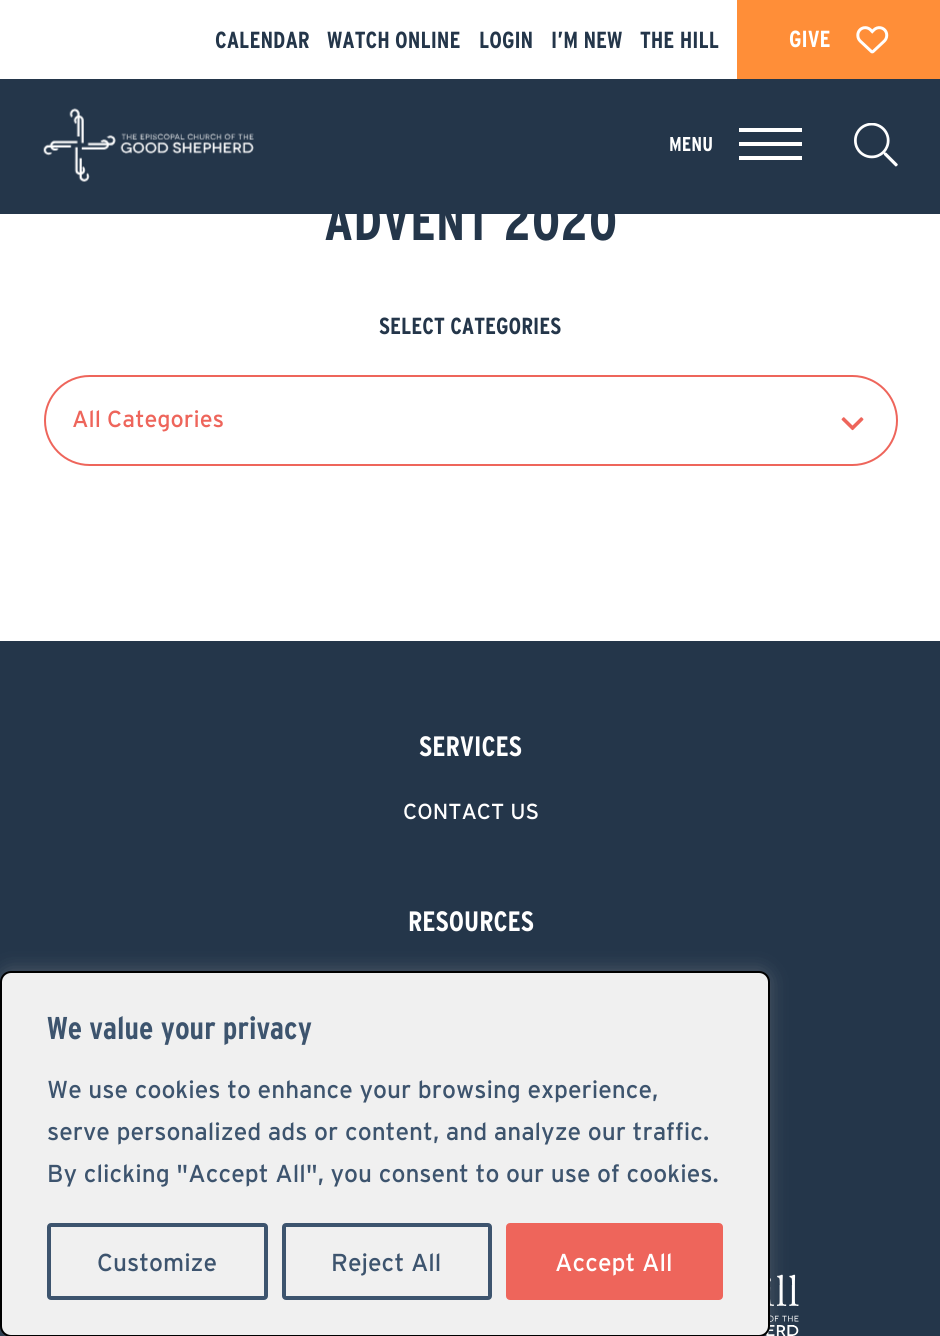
import math
import cairo


def round_path(ctx, x, y, w, h, r):
	ctx.new_sub_path()
	for i, (u, v) in enumerate([(x + w - r, y + h - r), (x + r, y + h - r), (x + r, y + r), (x + w - r, y + r)]):
		ctx.arc(u, v, r, i * math.pi / 2, (i + 1) * math.pi / 2)
	ctx.close_path()

def blur_box(ctx, x, y, w, h, r, blur, alpha):
	ctx.push_group_with_content(cairo.CONTENT_ALPHA)
	ctx.set_operator(cairo.OPERATOR_SOURCE)
	for i in range(15, -16, -2):
		e = blur * i / 6
		if min(w, h) + 2 * e > 0:
			ctx.set_source_rgba(0, 0, 0, alpha * math.erfc((i - 1) / 8.5) / 2)
			round_path(ctx, x - e, y - e, w + 2 * e, h + 2 * e, max(0, min(r + e + blur * .6, min(w, h) / 2 + e)))
			ctx.fill()
	ctx.mask(ctx.pop_group())

def paste(ctx, path, x, y, w, h):
	ctx.save()
	ctx.set_source_surface(cairo.ImageSurface.create_from_png(path), x, y)
	ctx.rectangle(x, y, w, h)
	ctx.fill()
	ctx.restore()

def draw(ctx):
	ctx.set_source_rgb(1, 1, 1)
	ctx.paint()
	ctx.select_font_face('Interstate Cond', cairo.FONT_SLANT_NORMAL, cairo.FONT_WEIGHT_BOLD)
	ctx.set_font_size(23.25)
	ctx.set_source_rgb(0.141, 0.212, 0.29)
	for x, y, s in [
		(215, 48, 'CALENDAR'),
		(327, 48, 'WATCH ONLINE'),
		(479, 48, 'LOGIN'),
		(551, 48, 'I’M NEW'),
		(640, 48, 'THE HILL'),
	]:
		ctx.move_to(x, y)
		ctx.show_text(s)
	ctx.set_source_rgb(1, 0.557, 0.22)
	ctx.rectangle(737, 0, 203, 79)
	ctx.fill()
	ctx.set_source_rgb(1, 1, 1)
	ctx.move_to(789, 47)
	ctx.show_text('GIVE')
	paste(ctx, 'media/1.png', 856, 26, 33, 28)
	ctx.set_source_rgb(0.141, 0.212, 0.29)
	ctx.rectangle(0, 79, 940, 135)
	ctx.fill()
	paste(ctx, 'media/2.png', 43, 108, 211, 74)
	ctx.set_font_size(20)
	ctx.set_source_rgb(1, 1, 1)
	ctx.move_to(669, 151)
	ctx.show_text('MENU')
	ctx.rectangle(739, 142, 63, 4)
	ctx.rectangle(739, 128, 63, 4)
	ctx.rectangle(739, 156, 63, 4)
	ctx.fill()
	paste(ctx, 'media/3.png', 854, 123, 44, 44)
	ctx.set_font_size(54.5)
	ctx.set_source_rgb(0.141, 0.212, 0.29)
	ctx.move_to(324, 240)
	ctx.show_text('ADVENT 2020')
	ctx.set_font_size(23.25)
	ctx.move_to(379, 334)
	ctx.show_text('SELECT CATEGORIES')
	round_path(ctx, 45, 376, 852, 89, 44.5)
	ctx.set_source_rgb(0.933, 0.396, 0.357)
	ctx.stroke()
	ctx.select_font_face('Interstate')
	ctx.move_to(72, 427)
	ctx.show_text('All Categories')
	paste(ctx, 'media/4.png', 841, 417, 23, 14)
	ctx.set_source_rgb(0.141, 0.212, 0.29)
	ctx.rectangle(0, 641, 940, 695)
	ctx.fill()
	ctx.select_font_face('Interstate Cond', cairo.FONT_SLANT_NORMAL, cairo.FONT_WEIGHT_BOLD)
	ctx.set_font_size(28)
	ctx.set_source_rgb(1, 1, 1)
	ctx.move_to(419, 756)
	ctx.show_text('SERVICES')
	ctx.select_font_face('Interstate')
	ctx.set_font_size(21.75)
	ctx.move_to(403, 819)
	ctx.show_text('CONTACT US')
	ctx.select_font_face('Interstate Cond', cairo.FONT_SLANT_NORMAL, cairo.FONT_WEIGHT_BOLD)
	ctx.set_font_size(28)
	ctx.move_to(408, 931)
	ctx.show_text('RESOURCES')
	paste(ctx, 'media/5.png', 763, 1274, 36, 62)
	ctx.set_source_rgb(0.675, 0.671, 0.671)
	blur_box(ctx, 0, 970, 770, 365, 11, 9, 0.3)
	ctx.set_source_rgb(0.941, 0.941, 0.941)
	round_path(ctx, 1, 972, 768, 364, 10)
	ctx.fill_preserve()
	ctx.set_source_rgb(0, 0, 0)
	ctx.stroke()
	ctx.set_font_size(31.5)
	ctx.set_source_rgb(0.239, 0.329, 0.431)
	ctx.move_to(47, 1039)
	ctx.show_text('We value your privacy')
	ctx.select_font_face('Interstate')
	ctx.set_font_size(24.5)
	for x, y, s in [
		(47, 1098, 'We use cookies to enhance your browsing experience,'),
		(47, 1140, 'serve personalized ads or content, and analyze our traffic.'),
		(47, 1182, 'By clicking "Accept All", you consent to our use of cookies.'),
	]:
		ctx.move_to(x, y)
		ctx.show_text(s)
	round_path(ctx, 49, 1225, 217, 73, 2)
	ctx.set_line_width(4)
	ctx.stroke()
	ctx.move_to(97, 1271)
	ctx.show_text('Customize')
	round_path(ctx, 284, 1225, 206, 73, 2)
	ctx.stroke()
	ctx.move_to(331, 1271)
	ctx.show_text('Reject All')
	ctx.set_source_rgb(0.933, 0.396, 0.357)
	round_path(ctx, 508, 1225, 213, 73, 2)
	ctx.fill_preserve()
	ctx.stroke()
	ctx.set_source_rgb(1, 1, 1)
	ctx.move_to(555, 1271)
	ctx.show_text('Accept All')


surface = cairo.ImageSurface(cairo.FORMAT_RGB24, 940, 1336)
ctx = cairo.Context(surface)
options = cairo.FontOptions()
options.set_hint_metrics(cairo.HINT_METRICS_OFF)
options.set_hint_style(cairo.HINT_STYLE_NONE)
ctx.set_font_options(options)
ctx.set_miter_limit(4)
draw(ctx)
surface.write_to_png('image.png')
